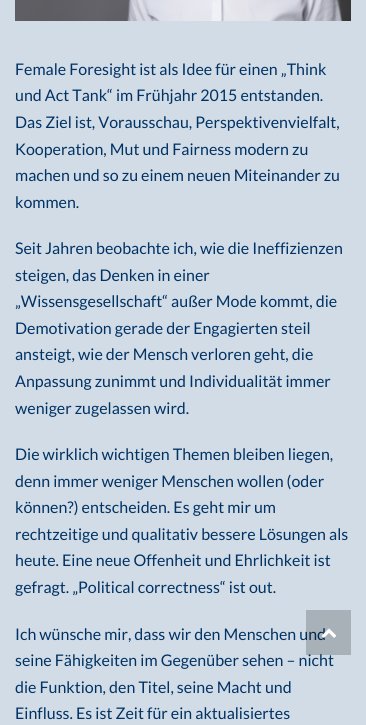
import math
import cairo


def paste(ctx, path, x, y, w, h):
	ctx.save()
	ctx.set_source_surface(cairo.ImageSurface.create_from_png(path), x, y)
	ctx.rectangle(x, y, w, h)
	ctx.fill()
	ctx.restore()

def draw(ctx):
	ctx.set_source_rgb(0.824, 0.863, 0.902)
	ctx.paint()
	paste(ctx, 'media/1.png', 15, 0, 336, 21)
	ctx.select_font_face('Lato')
	ctx.set_font_size(16)
	ctx.set_source_rgb(0, 0.196, 0.392)
	for x, y, s in [
		(15, 75, 'Female Foresight ist als Idee für einen „Think'),
		(15, 101, 'und Act Tank“ im Frühjahr 2015 entstanden.'),
		(15, 128, 'Das Ziel ist, Vorausschau, Perspektivenvielfalt,'),
		(15, 155, 'Kooperation, Mut und Fairness modern zu'),
		(15, 181, 'machen und so zu einem neuen Miteinander zu'),
		(15, 208, 'kommen.'),
		(15, 254, 'Seit Jahren beobachte ich, wie die Ineffizienzen'),
		(15, 281, 'steigen, das Denken in einer'),
		(15, 307, '„Wissensgesellschaft“ außer Mode kommt, die'),
		(15, 334, 'Demotivation gerade der Engagierten steil'),
		(15, 360, 'ansteigt, wie der Mensch verloren geht, die'),
		(15, 387, 'Anpassung zunimmt und Individualität immer'),
		(15, 414, 'weniger zugelassen wird.'),
		(15, 460, 'Die wirklich wichtigen Themen bleiben liegen,'),
		(15, 487, 'denn immer weniger Menschen wollen (oder'),
		(15, 513, 'können?) entscheiden. Es geht mir um'),
		(15, 540, 'rechtzeitige und qualitativ bessere Lösungen als'),
		(15, 566, 'heute. Eine neue Offenheit und Ehrlichkeit ist'),
		(15, 593, 'gefragt. „Political correctness“ ist out.'),
		(15, 640, 'Ich wünsche mir, dass wir den Menschen und'),
		(15, 666, 'seine Fähigkeiten im Gegenüber sehen – nicht'),
		(15, 693, 'die Funktion, den Titel, seine Macht und'),
		(15, 719, 'Einfluss. Es ist Zeit für ein aktualisiertes'),
	]:
		ctx.move_to(x, y)
		ctx.show_text(s)
	ctx.set_source_rgba(0, 0, 0, 0.2)
	ctx.rectangle(306, 610, 45, 45)
	ctx.fill()
	paste(ctx, 'media/2.png', 321, 628, 16, 10)


surface = cairo.ImageSurface(cairo.FORMAT_RGB24, 366, 725)
ctx = cairo.Context(surface)
options = cairo.FontOptions()
options.set_hint_metrics(cairo.HINT_METRICS_OFF)
options.set_hint_style(cairo.HINT_STYLE_NONE)
ctx.set_font_options(options)
ctx.set_miter_limit(4)
draw(ctx)
surface.write_to_png('image.png')
